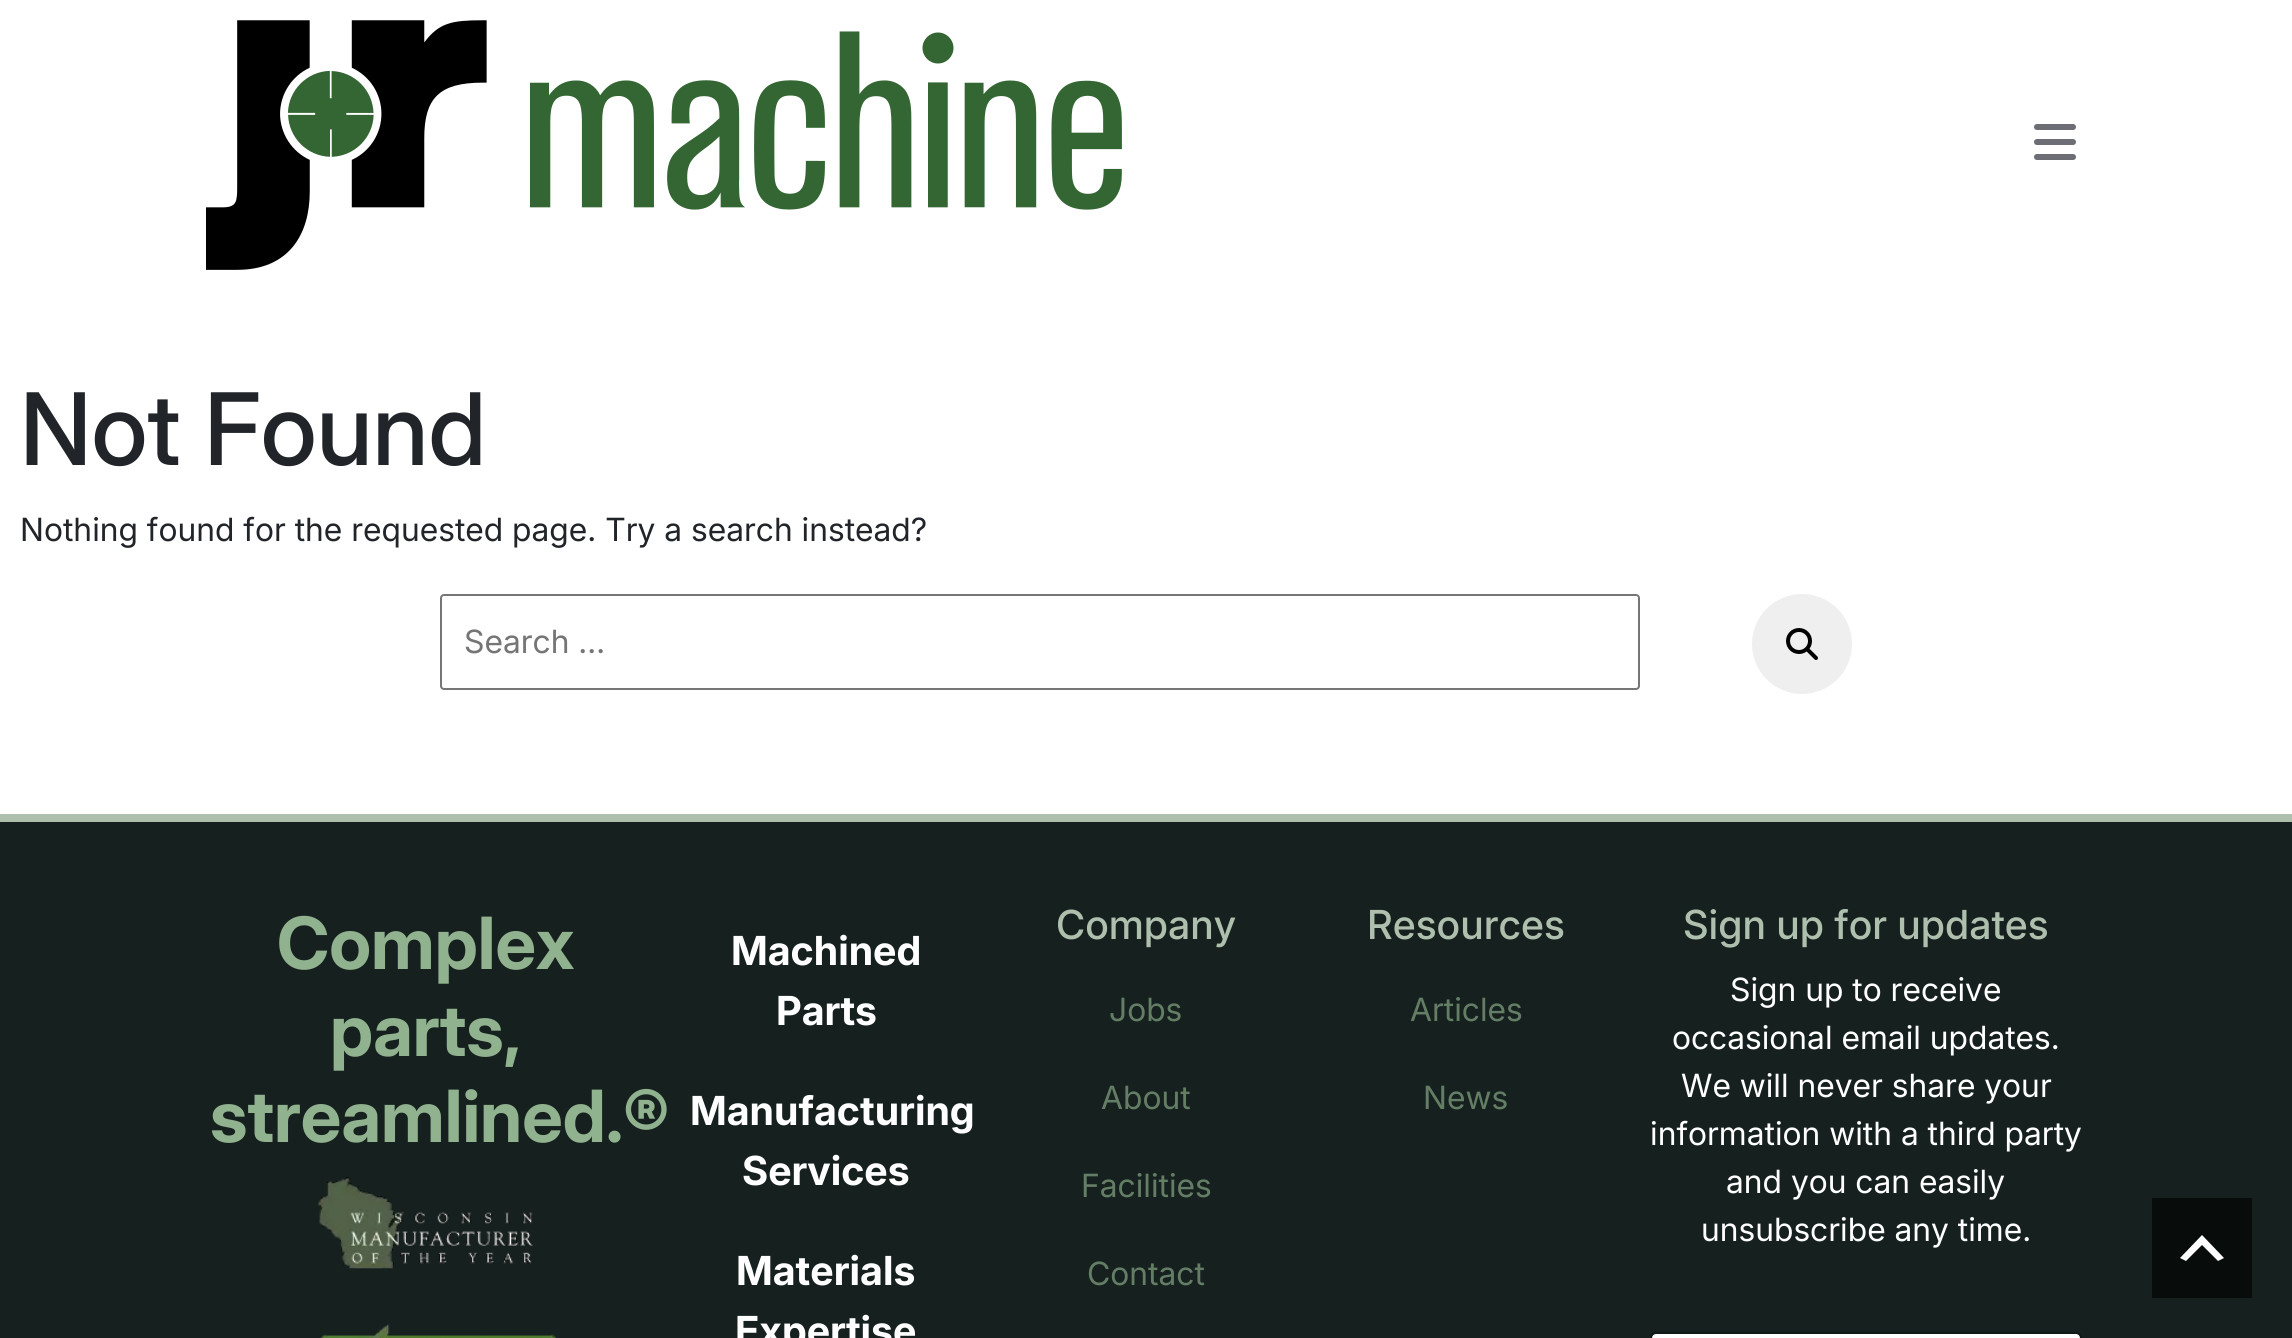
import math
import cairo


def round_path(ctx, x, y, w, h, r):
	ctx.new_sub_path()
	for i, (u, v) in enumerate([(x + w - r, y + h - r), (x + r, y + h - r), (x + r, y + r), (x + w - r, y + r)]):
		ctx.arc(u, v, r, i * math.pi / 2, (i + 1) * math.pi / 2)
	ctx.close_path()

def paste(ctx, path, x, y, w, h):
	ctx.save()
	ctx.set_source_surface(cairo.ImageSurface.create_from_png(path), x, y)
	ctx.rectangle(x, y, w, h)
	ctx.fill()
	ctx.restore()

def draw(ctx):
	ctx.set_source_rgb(1, 1, 1)
	ctx.paint()
	paste(ctx, 'media/1.png', 206, 20, 916, 250)
	paste(ctx, 'media/2.png', 2034, 124, 42, 36)
	ctx.select_font_face('Inter Medium')
	ctx.set_font_size(100)
	ctx.set_source_rgb(0.129, 0.145, 0.161)
	ctx.move_to(20, 465)
	ctx.show_text('Not Found')
	ctx.select_font_face('Inter')
	ctx.set_font_size(32)
	ctx.move_to(20, 541)
	ctx.show_text('Nothing found for the requested page. Try a search instead?')
	round_path(ctx, 441, 595, 1198, 94, 3)
	ctx.set_source_rgb(0.463, 0.463, 0.463)
	ctx.stroke()
	ctx.set_source_rgb(0.459, 0.459, 0.459)
	ctx.move_to(464, 653)
	ctx.show_text('Search …')
	ctx.set_source_rgb(0.937, 0.937, 0.937)
	ctx.new_path()
	ctx.arc(1802, 644, 50, 0, 2 * math.pi)
	ctx.fill()
	paste(ctx, 'media/3.png', 1786, 628, 32, 32)
	ctx.set_source_rgb(0.086, 0.129, 0.122)
	ctx.rectangle(0, 822, 2292, 516)
	ctx.fill()
	ctx.set_source_rgb(0.682, 0.753, 0.678)
	ctx.rectangle(0, 814, 2292, 8)
	ctx.fill()
	ctx.select_font_face('Inter', cairo.FONT_SLANT_NORMAL, cairo.FONT_WEIGHT_BOLD)
	ctx.set_font_size(72)
	ctx.set_source_rgb(0.569, 0.698, 0.561)
	for x, y, s in [
		(277, 969, 'Complex'),
		(330, 1056, 'parts,'),
		(210, 1142, 'streamlined.®'),
	]:
		ctx.move_to(x, y)
		ctx.show_text(s)
	paste(ctx, 'media/4.png', 318, 1177, 238, 161)
	ctx.select_font_face('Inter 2', cairo.FONT_SLANT_NORMAL, cairo.FONT_WEIGHT_BOLD)
	ctx.set_font_size(40)
	ctx.set_source_rgb(1, 1, 1)
	for x, y, s in [
		(731, 965, 'Machined'),
		(776, 1025, 'Parts'),
		(690, 1125, 'Manufacturing'),
		(742, 1185, 'Services'),
		(736, 1285, 'Materials'),
		(735, 1345, 'Expertise'),
	]:
		ctx.move_to(x, y)
		ctx.show_text(s)
	ctx.select_font_face('Inter 2 Medium')
	ctx.set_source_rgb(0.682, 0.753, 0.678)
	ctx.move_to(1056, 939)
	ctx.show_text('Company')
	ctx.select_font_face('Inter')
	ctx.set_font_size(32)
	ctx.set_source_rgb(0.392, 0.494, 0.4)
	for x, y, s in [
		(1109, 1021, 'Jobs'),
		(1101, 1109, 'About'),
		(1081, 1197, 'Facilities'),
		(1087, 1285, 'Contact'),
	]:
		ctx.move_to(x, y)
		ctx.show_text(s)
	ctx.select_font_face('Inter 2 Medium')
	ctx.set_font_size(40)
	ctx.set_source_rgb(0.682, 0.753, 0.678)
	ctx.move_to(1367, 939)
	ctx.show_text('Resources')
	ctx.select_font_face('Inter')
	ctx.set_font_size(32)
	ctx.set_source_rgb(0.392, 0.494, 0.4)
	ctx.move_to(1410, 1021)
	ctx.show_text('Articles')
	ctx.move_to(1423, 1109)
	ctx.show_text('News')
	ctx.select_font_face('Inter 2 Medium')
	ctx.set_font_size(40)
	ctx.set_source_rgb(0.682, 0.753, 0.678)
	ctx.move_to(1683, 939)
	ctx.show_text('Sign up for updates')
	ctx.select_font_face('Inter')
	ctx.set_font_size(32)
	ctx.set_source_rgb(1, 1, 1)
	for x, y, s in [
		(1730, 1001, 'Sign up to receive'),
		(1672, 1049, 'occasional email updates.'),
		(1681, 1097, 'We will never share your'),
		(1650, 1145, 'information with a third party'),
		(1726, 1193, 'and you can easily'),
		(1701, 1241, 'unsubscribe any time.'),
	]:
		ctx.move_to(x, y)
		ctx.show_text(s)
	round_path(ctx, 1652, 1334, 428, 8, 4)
	ctx.fill()
	round_path(ctx, 1651, 1333, 430, 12, 5)
	ctx.set_source_rgba(0, 0, 0, 0.25)
	ctx.stroke()
	ctx.set_source_rgb(0.035, 0.051, 0.047)
	ctx.rectangle(2152, 1198, 100, 100)
	ctx.fill()
	ctx.set_source_rgb(1, 1, 1)
	ctx.new_path()
	ctx.move_to(2218, 1261)
	ctx.line_to(2202, 1245)
	ctx.line_to(2186, 1261)
	ctx.line_to(2180, 1258)
	ctx.line_to(2202, 1235)
	ctx.line_to(2224, 1258)
	ctx.close_path()
	ctx.fill()


surface = cairo.ImageSurface(cairo.FORMAT_RGB24, 2292, 1338)
ctx = cairo.Context(surface)
options = cairo.FontOptions()
options.set_hint_metrics(cairo.HINT_METRICS_OFF)
options.set_hint_style(cairo.HINT_STYLE_NONE)
ctx.set_font_options(options)
ctx.set_miter_limit(4)
draw(ctx)
surface.write_to_png('image.png')
